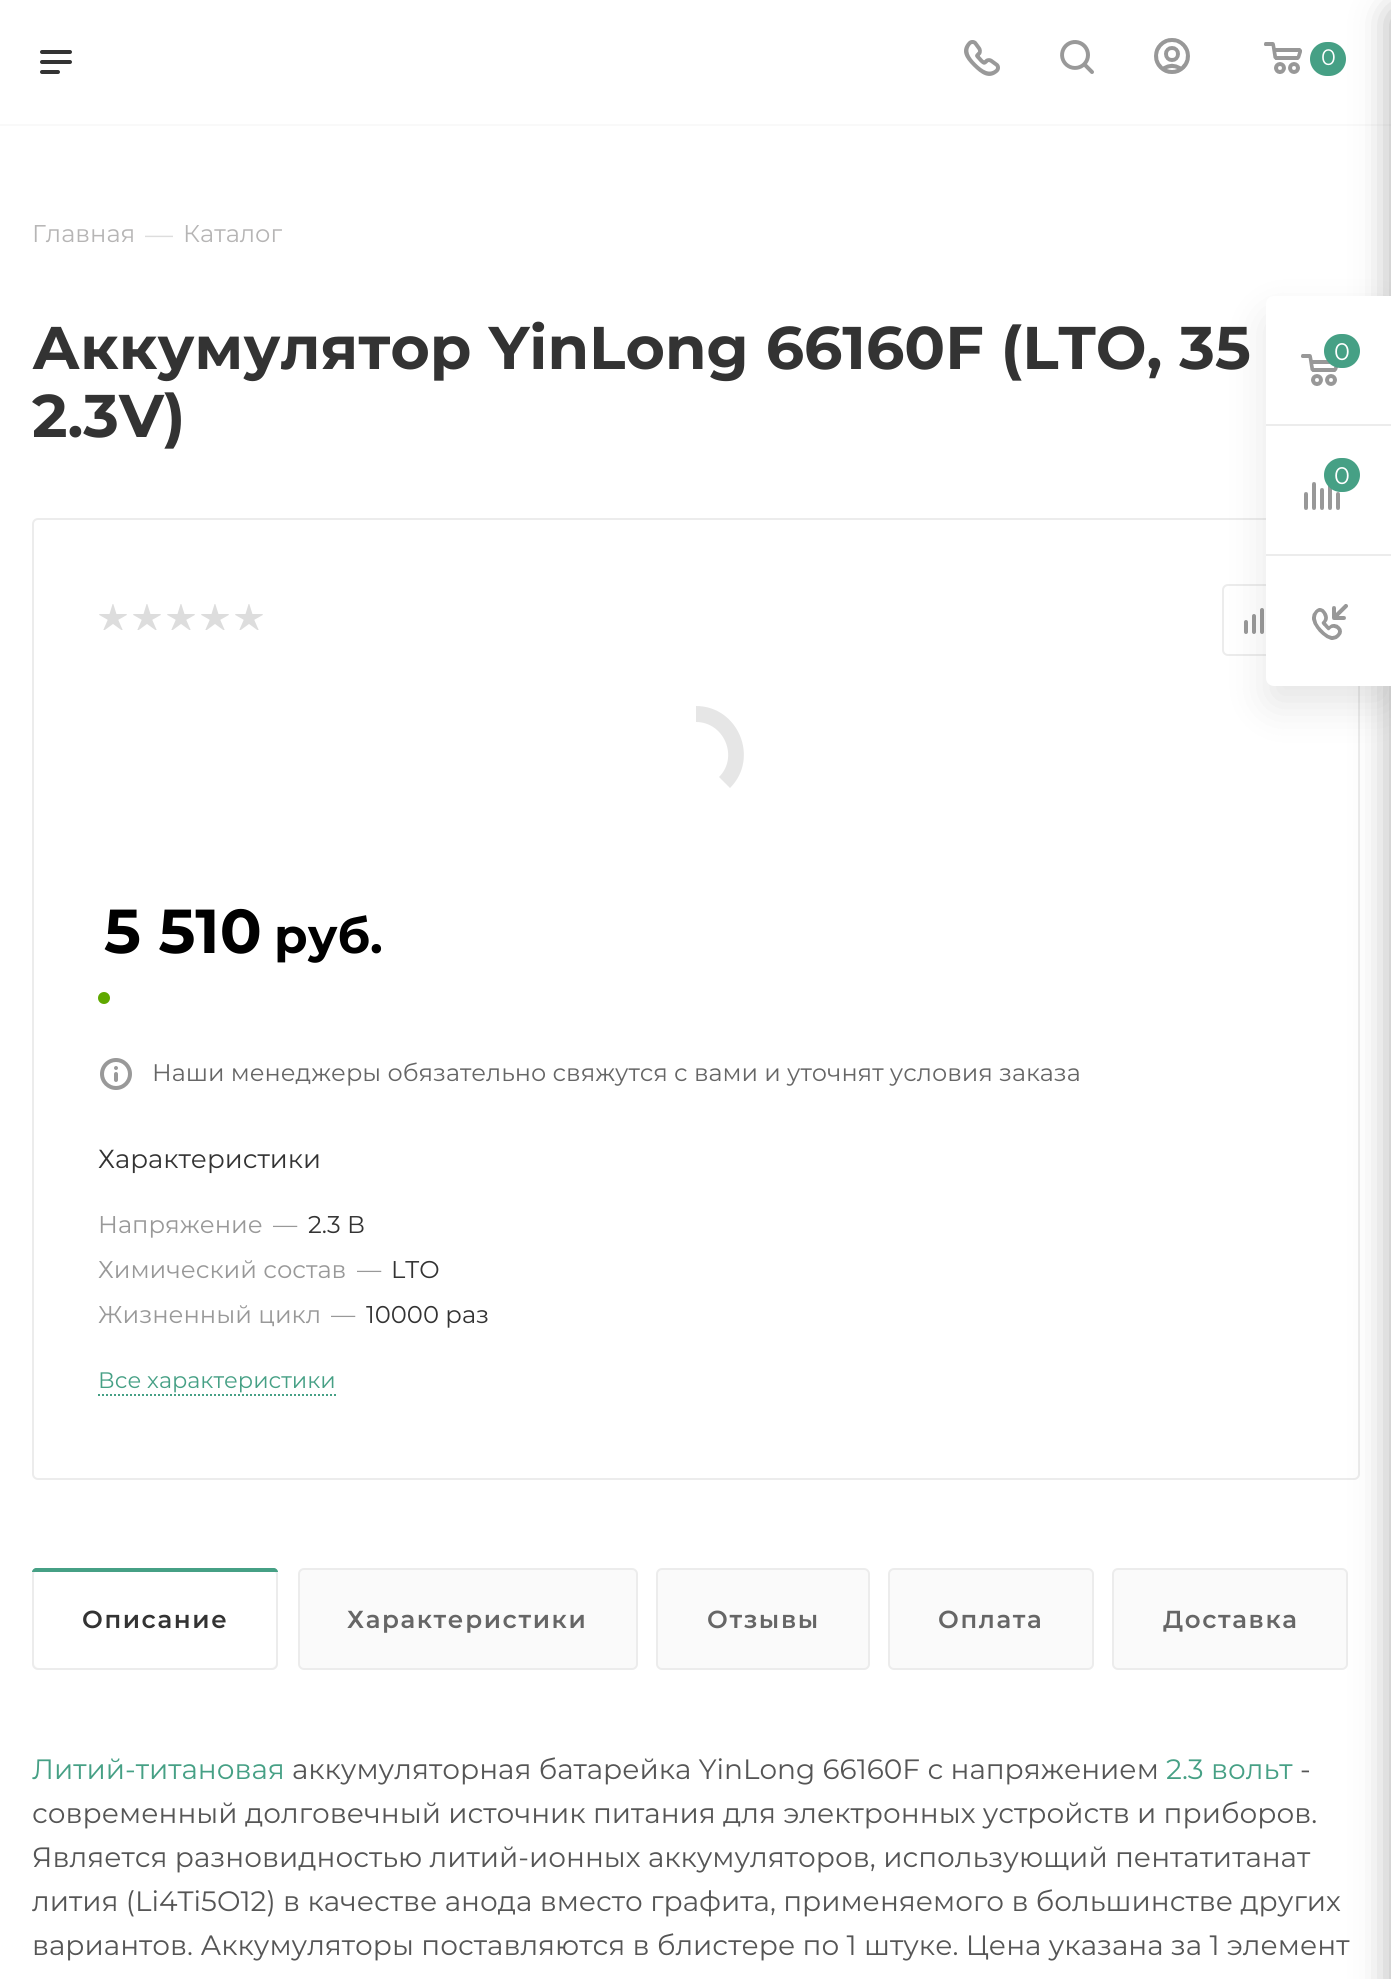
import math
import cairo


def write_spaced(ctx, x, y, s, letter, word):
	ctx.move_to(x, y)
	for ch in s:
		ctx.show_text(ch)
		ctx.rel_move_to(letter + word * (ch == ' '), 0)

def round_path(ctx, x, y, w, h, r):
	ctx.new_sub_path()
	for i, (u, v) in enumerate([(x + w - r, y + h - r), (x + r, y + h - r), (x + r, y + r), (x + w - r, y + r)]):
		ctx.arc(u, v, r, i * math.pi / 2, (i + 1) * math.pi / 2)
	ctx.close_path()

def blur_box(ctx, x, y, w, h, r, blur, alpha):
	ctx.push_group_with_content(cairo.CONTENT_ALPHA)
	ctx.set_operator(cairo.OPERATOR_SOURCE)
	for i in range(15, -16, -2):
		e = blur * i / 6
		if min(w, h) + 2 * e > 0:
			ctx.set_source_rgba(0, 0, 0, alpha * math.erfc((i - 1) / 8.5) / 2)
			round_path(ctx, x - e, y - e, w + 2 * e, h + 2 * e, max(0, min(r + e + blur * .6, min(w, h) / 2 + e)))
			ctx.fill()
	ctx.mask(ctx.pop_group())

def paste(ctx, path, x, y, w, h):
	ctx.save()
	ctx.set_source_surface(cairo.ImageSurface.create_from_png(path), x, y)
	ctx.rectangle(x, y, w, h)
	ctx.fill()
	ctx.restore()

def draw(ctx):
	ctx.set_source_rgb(1, 1, 1)
	ctx.paint()
	ctx.set_source_rgb(0.973, 0.973, 0.973)
	ctx.rectangle(0, 124, 1391, 2)
	ctx.fill()
	paste(ctx, 'media/1.png', 40, 50, 32, 24)
	paste(ctx, 'media/2.png', 964, 40, 36, 36)
	paste(ctx, 'media/3.png', 1060, 40, 34, 34)
	paste(ctx, 'media/4.png', 1154, 38, 36, 36)
	paste(ctx, 'media/5.png', 1264, 42, 38, 32)
	ctx.set_source_rgb(0.275, 0.627, 0.522)
	round_path(ctx, 1310, 42, 36, 34, 17)
	ctx.fill()
	ctx.select_font_face('Montserrat')
	ctx.set_font_size(22.4)
	ctx.set_source_rgb(1, 1, 1)
	ctx.move_to(1321, 65)
	ctx.show_text('0')
	ctx.set_font_size(24.25)
	ctx.set_source_rgb(0.714, 0.71, 0.71)
	ctx.move_to(32, 242)
	ctx.show_text('Главная')
	ctx.set_font_size(28)
	ctx.set_source_rgb(0.867, 0.867, 0.867)
	ctx.move_to(145, 244)
	ctx.show_text('—')
	ctx.set_font_size(24.25)
	ctx.set_source_rgb(0.714, 0.71, 0.71)
	ctx.move_to(183, 242)
	ctx.show_text('Каталог')
	ctx.select_font_face('Montserrat', cairo.FONT_SLANT_NORMAL, cairo.FONT_WEIGHT_BOLD)
	ctx.set_font_size(60.2)
	ctx.set_source_rgb(0.2, 0.2, 0.2)
	ctx.move_to(32, 369)
	ctx.show_text('Аккумулятор YinLong 66160F (LTO, 35')
	ctx.move_to(32, 437)
	ctx.show_text('2.3V)')
	round_path(ctx, 33, 519, 1326, 960, 5)
	ctx.set_source_rgb(0.925, 0.925, 0.925)
	ctx.stroke()
	paste(ctx, 'media/6.png', 99, 604, 28, 26)
	paste(ctx, 'media/6.png', 133, 604, 28, 26)
	paste(ctx, 'media/6.png', 167, 604, 28, 26)
	paste(ctx, 'media/6.png', 201, 604, 28, 26)
	paste(ctx, 'media/6.png', 235, 604, 28, 26)
	round_path(ctx, 1223, 585, 70, 70, 5)
	ctx.stroke()
	paste(ctx, 'media/7.png', 1244, 608, 20, 26)
	ctx.set_source_rgb(0.902, 0.902, 0.902)
	ctx.new_path()
	ctx.move_to(696, 706)
	ctx.curve_to(738, 706, 760, 758, 730, 788)
	ctx.line_to(719, 777)
	ctx.curve_to(739, 757, 724, 722, 696, 722)
	ctx.close_path()
	ctx.fill()
	ctx.set_font_size(62)
	ctx.set_source_rgb(0, 0, 0)
	ctx.move_to(104, 953)
	ctx.show_text('5 510')
	ctx.set_font_size(48.5)
	ctx.move_to(274, 953)
	ctx.show_text('руб.')
	ctx.set_source_rgb(0.373, 0.659, 0)
	ctx.new_path()
	ctx.arc(104, 998, 6, 0, 2 * math.pi)
	ctx.fill()
	paste(ctx, 'media/8.png', 100, 1058, 32, 32)
	ctx.select_font_face('Montserrat')
	ctx.set_font_size(24)
	ctx.set_source_rgb(0.4, 0.4, 0.4)
	ctx.move_to(152, 1081)
	ctx.show_text('Наши менеджеры обязательно свяжутся с вами и уточнят условия заказа')
	ctx.set_font_size(26.1)
	ctx.set_source_rgb(0.2, 0.2, 0.2)
	ctx.move_to(98, 1168)
	ctx.show_text('Характеристики')
	ctx.set_font_size(24.25)
	ctx.set_source_rgb(0.6, 0.6, 0.6)
	ctx.move_to(98, 1233)
	ctx.show_text('Напряжение')
	ctx.move_to(273, 1233)
	ctx.show_text('—')
	ctx.set_source_rgb(0.2, 0.2, 0.2)
	ctx.move_to(308, 1233)
	ctx.show_text('2.3 В')
	ctx.set_source_rgb(0.6, 0.6, 0.6)
	ctx.move_to(98, 1278)
	ctx.show_text('Химический состав')
	ctx.move_to(357, 1278)
	ctx.show_text('—')
	ctx.set_source_rgb(0.2, 0.2, 0.2)
	ctx.move_to(391, 1278)
	ctx.show_text('LTO')
	ctx.set_source_rgb(0.6, 0.6, 0.6)
	ctx.move_to(98, 1323)
	ctx.show_text('Жизненный цикл')
	ctx.move_to(331, 1323)
	ctx.show_text('—')
	ctx.set_source_rgb(0.2, 0.2, 0.2)
	ctx.move_to(366, 1323)
	ctx.show_text('10000 раз')
	ctx.set_font_size(22.4)
	ctx.set_source_rgb(0.275, 0.627, 0.522)
	ctx.move_to(98, 1388)
	ctx.show_text('Все характеристики')
	ctx.new_path()
	ctx.move_to(98, 1395)
	ctx.line_to(336, 1395)
	ctx.set_dash([2, 2])
	ctx.stroke()
	ctx.set_source_rgb(0.98, 0.98, 0.98)
	round_path(ctx, 33, 1569, 244, 100, 5)
	ctx.fill_preserve()
	ctx.set_source_rgb(0.925, 0.925, 0.925)
	ctx.set_dash([])
	ctx.stroke()
	ctx.set_source_rgb(1, 1, 1)
	round_path(ctx, 34, 1570, 242, 98, 6)
	ctx.fill()
	ctx.set_source_rgb(0.275, 0.627, 0.522)
	ctx.new_path()
	ctx.move_to(36, 1568)
	ctx.line_to(274, 1568)
	ctx.curve_to(276, 1568, 278, 1570, 278, 1572)
	ctx.line_to(32, 1572)
	ctx.curve_to(32, 1570, 34, 1568, 36, 1568)
	ctx.close_path()
	ctx.fill()
	ctx.select_font_face('Montserrat SemiBold')
	ctx.set_font_size(24.6)
	ctx.set_source_rgb(0.2, 0.2, 0.2)
	write_spaced(ctx, 82, 1628, 'Описание', 1.6, 0)
	ctx.set_source_rgb(0.98, 0.98, 0.98)
	round_path(ctx, 299, 1569, 338, 100, 5)
	ctx.fill_preserve()
	ctx.set_source_rgb(0.925, 0.925, 0.925)
	ctx.stroke()
	ctx.set_source_rgb(0.4, 0.4, 0.4)
	write_spaced(ctx, 347, 1628, 'Характеристики', 1.6, 0)
	ctx.set_source_rgb(0.98, 0.98, 0.98)
	round_path(ctx, 657, 1569, 212, 100, 5)
	ctx.fill_preserve()
	ctx.set_source_rgb(0.925, 0.925, 0.925)
	ctx.stroke()
	ctx.set_source_rgb(0.4, 0.4, 0.4)
	write_spaced(ctx, 707, 1628, 'Отзывы', 1.6, 0)
	ctx.set_source_rgb(0.98, 0.98, 0.98)
	round_path(ctx, 889, 1569, 204, 100, 5)
	ctx.fill_preserve()
	ctx.set_source_rgb(0.925, 0.925, 0.925)
	ctx.stroke()
	ctx.set_source_rgb(0.4, 0.4, 0.4)
	write_spaced(ctx, 938, 1628, 'Оплата', 1.6, 0)
	ctx.set_source_rgb(0.98, 0.98, 0.98)
	round_path(ctx, 1113, 1569, 234, 100, 5)
	ctx.fill_preserve()
	ctx.set_source_rgb(0.925, 0.925, 0.925)
	ctx.stroke()
	ctx.set_source_rgb(0.4, 0.4, 0.4)
	write_spaced(ctx, 1163, 1628, 'Доставка', 1.6, 0)
	ctx.select_font_face('Montserrat')
	ctx.set_font_size(28)
	ctx.set_source_rgb(0.275, 0.627, 0.522)
	ctx.move_to(32, 1779)
	ctx.show_text('Литий-титановая')
	ctx.set_source_rgb(0.333, 0.333, 0.333)
	ctx.move_to(292, 1779)
	ctx.show_text('аккумуляторная батарейка YinLong 66160F с напряжением')
	ctx.set_source_rgb(0.275, 0.627, 0.522)
	ctx.move_to(1166, 1779)
	ctx.show_text('2.3 вольт')
	ctx.set_source_rgb(0.333, 0.333, 0.333)
	for x, y, s in [
		(1300, 1779, '-'),
		(32, 1823, 'современный долговечный источник питания для электронных устройств и приборов.'),
		(32, 1867, 'Является разновидностью литий-ионных аккумуляторов, использующий пентатитанат'),
		(32, 1911, 'лития (Li4Ti5O12) в качестве анода вместо графита, применяемого в большинстве других'),
		(32, 1955, 'вариантов. Аккумуляторы поставляются в блистере по 1 штуке. Цена указана за 1 элемент'),
	]:
		ctx.move_to(x, y)
		ctx.show_text(s)
	ctx.set_source_rgb(0.173, 0.173, 0.173)
	blur_box(ctx, 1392, 12, 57, 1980, 4, 18, 0.4)
	ctx.set_source_rgb(0, 0, 0)
	blur_box(ctx, 1266, 316, 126, 390, 8, 20, 0.1)
	ctx.set_source_rgb(1, 1, 1)
	ctx.new_path()
	ctx.move_to(1274, 296)
	ctx.line_to(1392, 296)
	ctx.line_to(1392, 686)
	ctx.line_to(1274, 686)
	ctx.curve_to(1269.5, 686, 1266, 682.5, 1266, 678)
	ctx.line_to(1266, 304)
	ctx.curve_to(1266, 299.5, 1269.5, 296, 1274, 296)
	ctx.close_path()
	ctx.fill()
	ctx.set_source_rgb(0.925, 0.925, 0.925)
	ctx.rectangle(1266, 424, 125, 2)
	ctx.fill()
	paste(ctx, 'media/9.png', 1301, 354, 37, 32)
	ctx.set_source_rgb(0.275, 0.627, 0.522)
	round_path(ctx, 1324, 334, 36, 34, 17)
	ctx.fill()
	ctx.set_font_size(24)
	ctx.set_source_rgb(1, 1, 1)
	ctx.move_to(1334, 360)
	ctx.show_text('0')
	ctx.set_source_rgb(0.925, 0.925, 0.925)
	ctx.rectangle(1266, 554, 125, 2)
	ctx.fill()
	paste(ctx, 'media/10.png', 1304, 482, 36, 28)
	ctx.set_source_rgb(0.275, 0.627, 0.522)
	round_path(ctx, 1324, 458, 36, 34, 17)
	ctx.fill()
	ctx.set_source_rgb(1, 1, 1)
	ctx.move_to(1334, 484)
	ctx.show_text('0')
	paste(ctx, 'media/11.png', 1312, 604, 36, 36)


surface = cairo.ImageSurface(cairo.FORMAT_RGB24, 1391, 1979)
ctx = cairo.Context(surface)
options = cairo.FontOptions()
options.set_hint_metrics(cairo.HINT_METRICS_OFF)
options.set_hint_style(cairo.HINT_STYLE_NONE)
ctx.set_font_options(options)
ctx.set_miter_limit(4)
draw(ctx)
surface.write_to_png('image.png')
